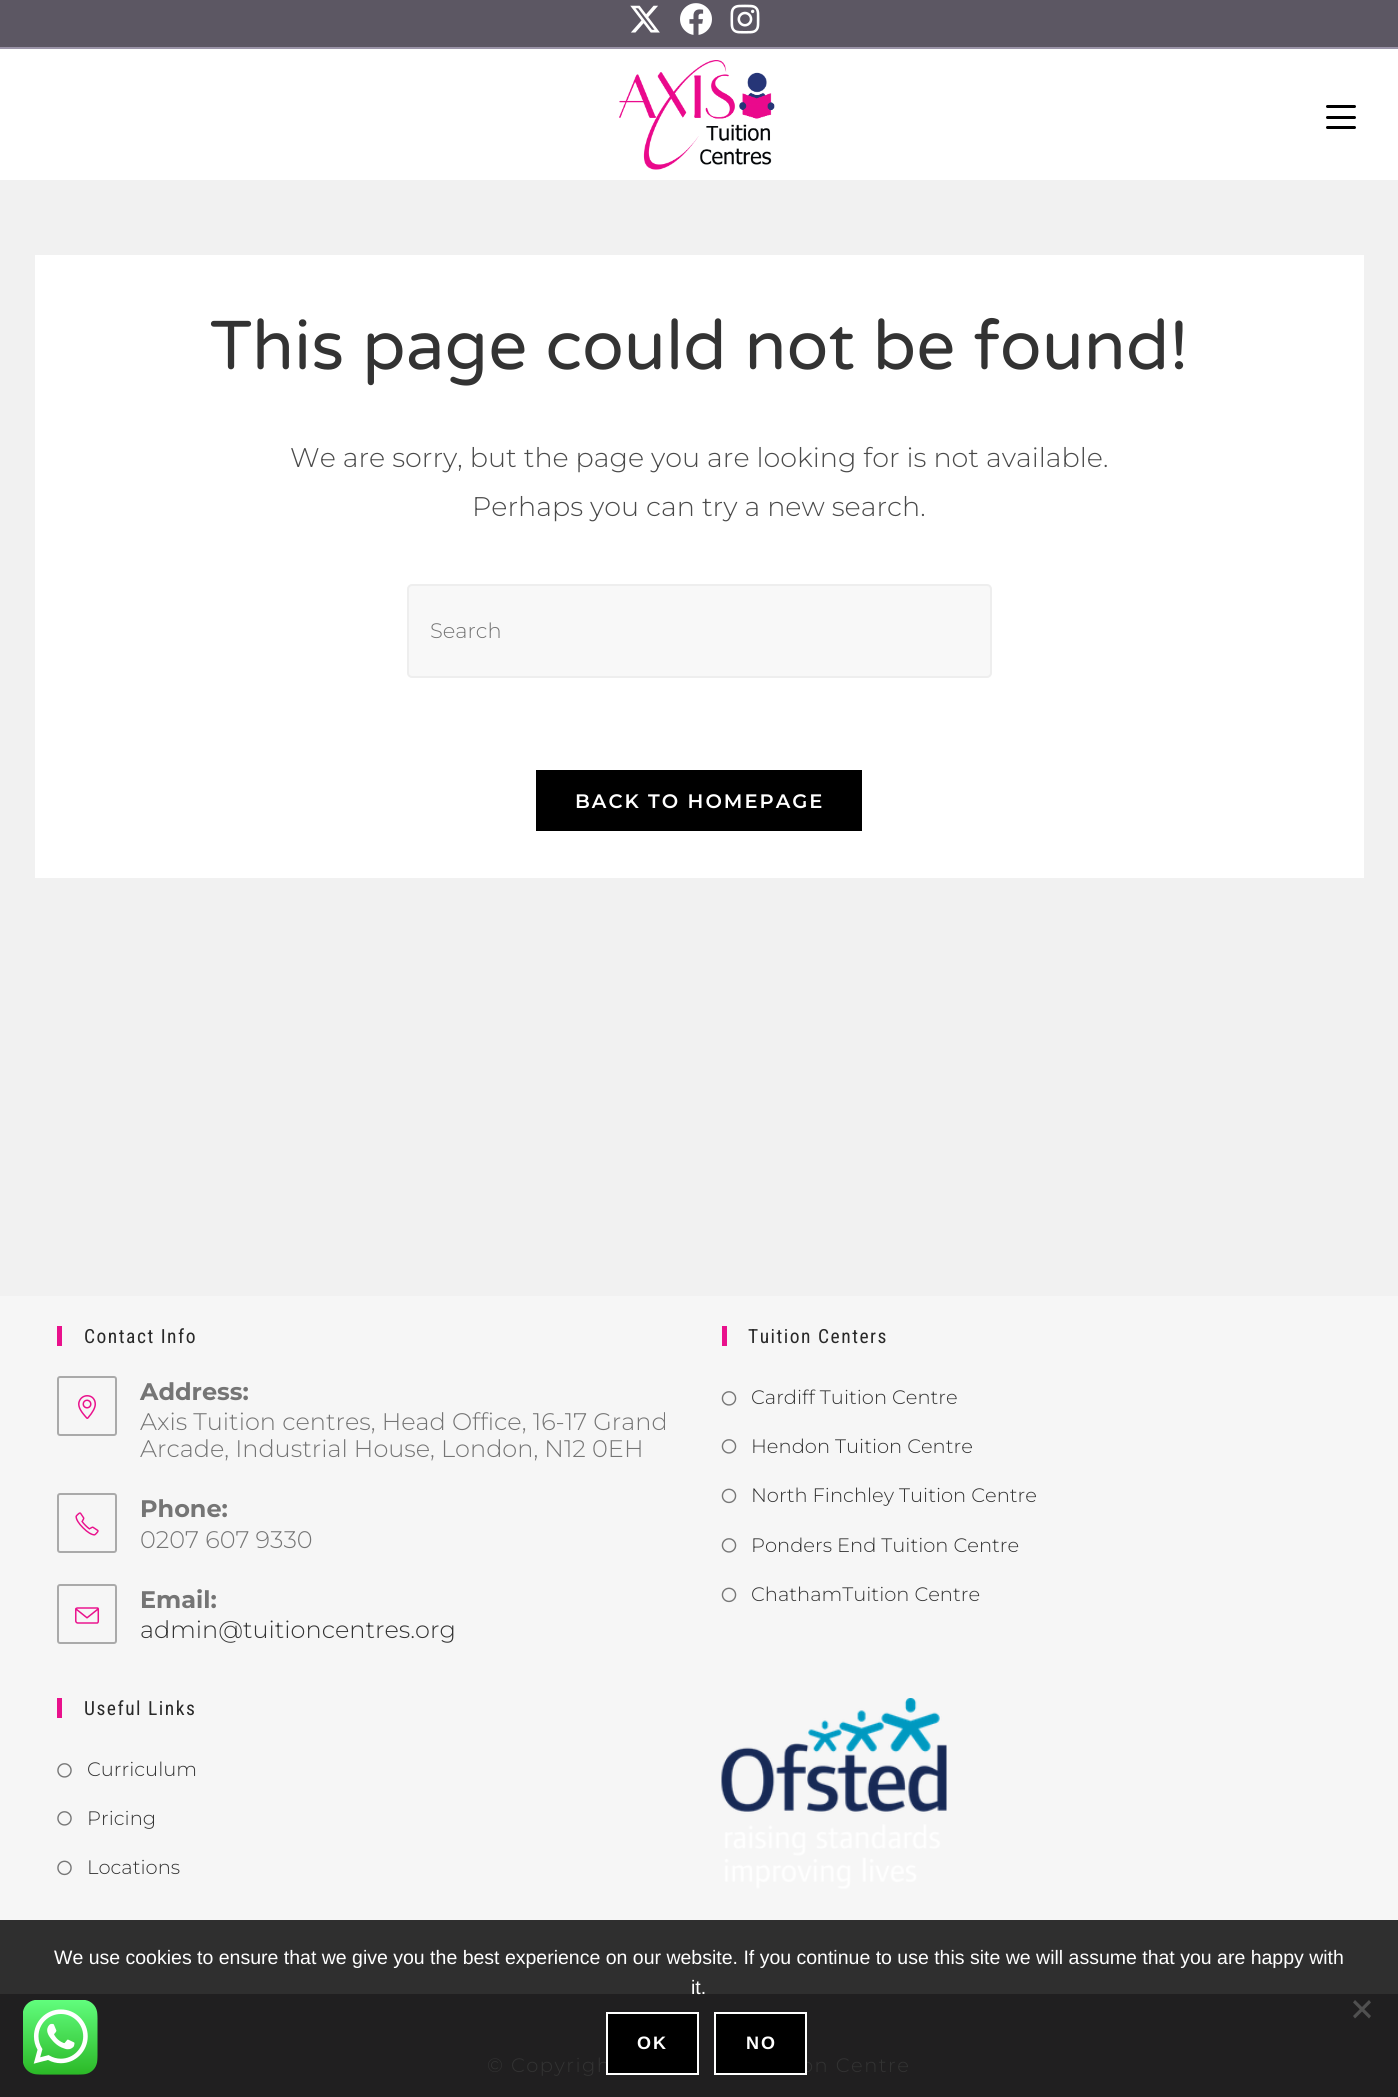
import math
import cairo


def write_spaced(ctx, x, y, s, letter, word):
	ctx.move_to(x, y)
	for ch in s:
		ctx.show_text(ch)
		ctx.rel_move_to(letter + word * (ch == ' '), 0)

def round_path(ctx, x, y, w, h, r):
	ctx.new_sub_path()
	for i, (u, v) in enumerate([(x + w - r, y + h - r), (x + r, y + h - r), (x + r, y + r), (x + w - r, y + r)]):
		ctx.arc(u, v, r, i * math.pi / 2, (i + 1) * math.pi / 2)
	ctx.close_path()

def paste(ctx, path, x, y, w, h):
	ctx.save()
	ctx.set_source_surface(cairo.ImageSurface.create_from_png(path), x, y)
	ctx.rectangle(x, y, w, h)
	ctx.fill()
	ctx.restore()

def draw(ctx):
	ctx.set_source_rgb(0.945, 0.945, 0.945)
	ctx.paint()
	ctx.set_source_rgb(0.361, 0.341, 0.388)
	ctx.rectangle(0, 0, 1398, 47)
	ctx.fill()
	ctx.set_source_rgb(0.608, 0.58, 0.659)
	ctx.rectangle(0, 47, 1398, 2)
	ctx.fill()
	paste(ctx, 'media/1.png', 630, 5, 30, 28)
	paste(ctx, 'media/2.png', 680, 3, 32, 32)
	paste(ctx, 'media/3.png', 730, 4, 30, 30)
	ctx.set_source_rgb(1, 1, 1)
	ctx.rectangle(0, 49, 1398, 131)
	ctx.fill()
	paste(ctx, 'media/4.png', 619, 60, 156, 110)
	ctx.set_source_rgb(0, 0, 0)
	round_path(ctx, 1326, 126, 30, 3, 1.5)
	ctx.fill()
	round_path(ctx, 1326, 105, 30, 3, 1.5)
	ctx.fill()
	round_path(ctx, 1326, 116, 30, 3, 1.5)
	ctx.fill()
	ctx.set_source_rgb(1, 1, 1)
	ctx.rectangle(35, 255, 1329, 623)
	ctx.fill()
	ctx.select_font_face('Varela Round')
	ctx.set_font_size(69)
	ctx.set_source_rgb(0.2, 0.2, 0.2)
	ctx.move_to(210, 369)
	ctx.show_text('This page could not be found!')
	ctx.select_font_face('Montserrat Thin')
	ctx.set_font_size(27)
	ctx.set_source_rgb(0.29, 0.29, 0.29)
	ctx.move_to(290, 467)
	ctx.show_text('We are sorry, but the page you are looking for is not available.')
	ctx.move_to(472, 516)
	ctx.show_text('Perhaps you can try a new search.')
	ctx.set_source_rgb(0.969, 0.969, 0.969)
	round_path(ctx, 408, 585, 583, 92, 4)
	ctx.fill_preserve()
	ctx.set_source_rgb(0.933, 0.933, 0.933)
	ctx.stroke()
	ctx.set_font_size(21)
	ctx.set_source_rgb(0.459, 0.459, 0.459)
	ctx.move_to(430, 638)
	ctx.show_text('Search')
	ctx.set_source_rgb(0, 0, 0)
	ctx.rectangle(536, 770, 326, 61)
	ctx.fill()
	ctx.select_font_face('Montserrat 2 Thin')
	ctx.set_font_size(19.5)
	ctx.set_source_rgb(1, 1, 1)
	write_spaced(ctx, 575, 808, 'BACK TO HOMEPAGE', 2, 0)
	ctx.set_source_rgb(0.961, 0.961, 0.961)
	ctx.rectangle(0, 1296, 1398, 624)
	ctx.fill()
	ctx.set_source_rgb(0.184, 0.184, 0.184)
	ctx.rectangle(0, 1920, 1398, 74)
	ctx.fill()
	ctx.set_source_rgb(0.914, 0.067, 0.549)
	ctx.rectangle(57, 1326, 5, 20)
	ctx.fill()
	ctx.select_font_face('Roboto Condensed')
	ctx.set_source_rgb(0.161, 0.161, 0.161)
	write_spaced(ctx, 84, 1343, 'Contact Info', 1.5, 0)
	round_path(ctx, 58, 1377, 58, 58, 2)
	ctx.set_source_rgb(0.667, 0.667, 0.667)
	ctx.stroke()
	paste(ctx, 'media/5.png', 78, 1395, 18, 24)
	ctx.select_font_face('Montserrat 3 Thin')
	ctx.set_font_size(24)
	ctx.set_source_rgb(0.459, 0.459, 0.459)
	ctx.move_to(140, 1400)
	ctx.show_text('Address:')
	ctx.select_font_face('Montserrat Thin')
	ctx.move_to(140, 1430)
	ctx.show_text('Axis Tuition centres, Head Office, 16-17 Grand')
	ctx.move_to(140, 1457)
	ctx.show_text('Arcade, Industrial House, London, N12 0EH')
	round_path(ctx, 58, 1494, 58, 58, 2)
	ctx.set_source_rgb(0.667, 0.667, 0.667)
	ctx.stroke()
	paste(ctx, 'media/6.png', 75, 1512, 24, 24)
	ctx.select_font_face('Montserrat 3 Thin')
	ctx.set_source_rgb(0.459, 0.459, 0.459)
	ctx.move_to(140, 1517)
	ctx.show_text('Phone:')
	ctx.select_font_face('Montserrat Thin')
	ctx.move_to(140, 1548)
	ctx.show_text('0207 607 9330')
	round_path(ctx, 58, 1585, 58, 58, 2)
	ctx.set_source_rgb(0.667, 0.667, 0.667)
	ctx.stroke()
	paste(ctx, 'media/7.png', 75, 1607, 25, 17)
	ctx.select_font_face('Montserrat 3 Thin')
	ctx.set_source_rgb(0.459, 0.459, 0.459)
	ctx.move_to(140, 1608)
	ctx.show_text('Email:')
	ctx.select_font_face('Montserrat Thin')
	ctx.set_source_rgb(0.2, 0.2, 0.2)
	ctx.move_to(140, 1638)
	ctx.show_text('admin@tuitioncentres.org')
	ctx.set_source_rgb(0.914, 0.067, 0.549)
	ctx.rectangle(722, 1326, 5, 20)
	ctx.fill()
	ctx.select_font_face('Roboto Condensed')
	ctx.set_font_size(19.5)
	ctx.set_source_rgb(0.161, 0.161, 0.161)
	write_spaced(ctx, 748, 1343, 'Tuition Centers', 1.5, 0)
	paste(ctx, 'media/8.png', 721, 1391, 16, 15)
	ctx.select_font_face('Montserrat Thin')
	ctx.set_source_rgb(0.2, 0.2, 0.2)
	ctx.move_to(751, 1404)
	ctx.show_text('Cardiff Tuition Centre')
	paste(ctx, 'media/8.png', 721, 1439, 16, 15)
	ctx.move_to(751, 1453)
	ctx.show_text('Hendon Tuition Centre')
	paste(ctx, 'media/9.png', 721, 1488, 16, 16)
	ctx.move_to(751, 1502)
	ctx.show_text('North Finchley Tuition Centre')
	paste(ctx, 'media/8.png', 721, 1538, 16, 15)
	ctx.move_to(751, 1552)
	ctx.show_text('Ponders End Tuition Centre')
	paste(ctx, 'media/9.png', 721, 1587, 16, 16)
	ctx.move_to(751, 1601)
	ctx.show_text('ChathamTuition Centre')
	ctx.set_source_rgb(0.914, 0.067, 0.549)
	ctx.rectangle(57, 1698, 5, 20)
	ctx.fill()
	ctx.select_font_face('Roboto Condensed')
	ctx.set_source_rgb(0.161, 0.161, 0.161)
	write_spaced(ctx, 84, 1715, 'Useful Links', 1.5, 0)
	paste(ctx, 'media/10.png', 57, 1763, 15, 15)
	ctx.select_font_face('Montserrat Thin')
	ctx.set_source_rgb(0.2, 0.2, 0.2)
	ctx.move_to(87, 1776)
	ctx.show_text('Curriculum')
	paste(ctx, 'media/10.png', 57, 1811, 15, 15)
	ctx.move_to(87, 1825)
	ctx.show_text('Pricing')
	paste(ctx, 'media/11.png', 57, 1860, 15, 16)
	ctx.move_to(87, 1874)
	ctx.show_text('Locations')
	paste(ctx, 'media/12.png', 721, 1698, 226, 191)
	ctx.set_source_rgb(0.125, 0.122, 0.125)
	ctx.rectangle(0, 1994, 1398, 103)
	ctx.fill()
	ctx.set_source_rgb(0.2, 0.2, 0.2)
	write_spaced(ctx, 487, 2072, '© Copyrigh', 1.5, 0)
	write_spaced(ctx, 801, 2072, 'on Centre', 1.5, 0)
	ctx.select_font_face('Liberation Sans')
	ctx.set_source_rgb(1, 1, 1)
	ctx.move_to(54, 1964)
	ctx.show_text('We use cookies to ensure that we give you the best experience on our website. If you continue to use this site we will assume that you are happy with')
	ctx.move_to(691, 1994)
	ctx.show_text('it.')
	ctx.set_source_rgb(0.314, 0.314, 0.314)
	ctx.new_path()
	ctx.move_to(1369, 2000)
	ctx.line_to(1371, 2002.5)
	ctx.line_to(1355, 2018.5)
	ctx.line_to(1353, 2016)
	ctx.close_path()
	ctx.fill()
	ctx.new_path()
	ctx.move_to(1353, 2002.5)
	ctx.line_to(1355, 2000)
	ctx.line_to(1371, 2016)
	ctx.line_to(1369, 2018.5)
	ctx.close_path()
	ctx.fill()
	ctx.set_source_rgb(0, 0, 0)
	ctx.rectangle(607, 2013, 91, 61)
	ctx.fill_preserve()
	ctx.set_source_rgb(1, 1, 1)
	ctx.stroke()
	ctx.select_font_face('Liberation Sans', cairo.FONT_SLANT_NORMAL, cairo.FONT_WEIGHT_BOLD)
	ctx.set_font_size(18)
	write_spaced(ctx, 637, 2049, 'OK', 2, 0)
	ctx.set_source_rgb(0, 0, 0)
	ctx.rectangle(715, 2013, 91, 61)
	ctx.fill_preserve()
	ctx.set_source_rgb(1, 1, 1)
	ctx.stroke()
	write_spaced(ctx, 746, 2049, 'NO', 2, 0)
	paste(ctx, 'media/13.png', 23, 2000, 75, 75)


surface = cairo.ImageSurface(cairo.FORMAT_RGB24, 1398, 2097)
ctx = cairo.Context(surface)
options = cairo.FontOptions()
options.set_hint_metrics(cairo.HINT_METRICS_OFF)
options.set_hint_style(cairo.HINT_STYLE_NONE)
ctx.set_font_options(options)
ctx.set_miter_limit(4)
draw(ctx)
surface.write_to_png('image.png')
